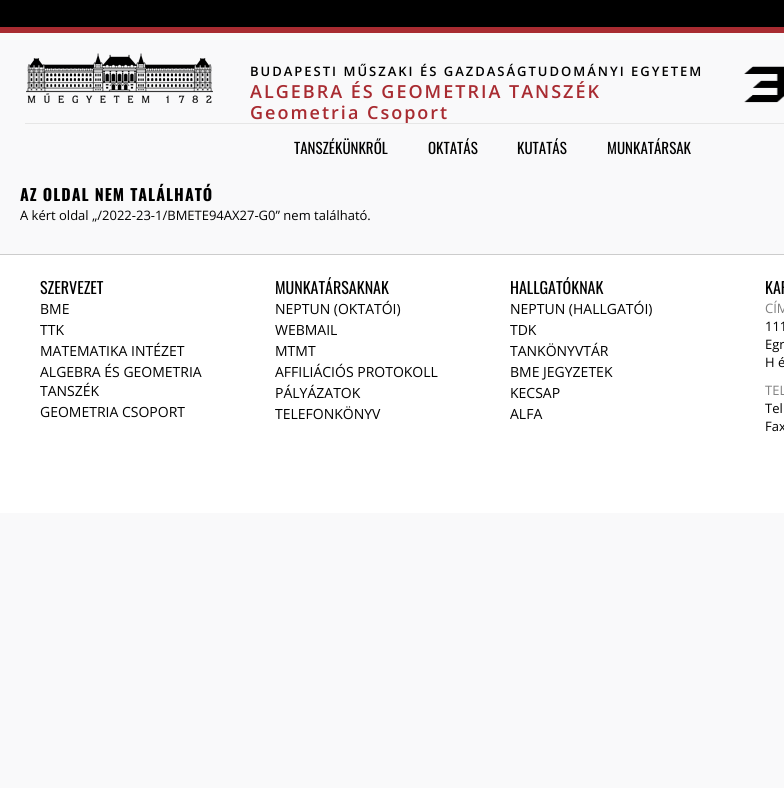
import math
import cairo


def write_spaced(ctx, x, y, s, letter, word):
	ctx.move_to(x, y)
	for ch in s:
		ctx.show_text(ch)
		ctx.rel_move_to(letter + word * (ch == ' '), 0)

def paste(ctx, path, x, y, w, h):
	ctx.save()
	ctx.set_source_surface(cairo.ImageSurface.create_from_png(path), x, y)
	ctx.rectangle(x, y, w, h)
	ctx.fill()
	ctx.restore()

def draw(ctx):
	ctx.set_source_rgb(0.976, 0.976, 0.98)
	ctx.paint()
	ctx.set_source_rgb(0, 0, 0)
	ctx.rectangle(0, 0, 784, 27)
	ctx.fill()
	ctx.set_source_rgb(0.659, 0.169, 0.192)
	ctx.rectangle(0, 27, 784, 6)
	ctx.fill()
	paste(ctx, 'media/1.png', 26, 53, 187, 50)
	ctx.select_font_face('Open Sans SemiBold')
	ctx.set_font_size(13)
	ctx.set_source_rgb(0, 0, 0)
	write_spaced(ctx, 250, 76, 'BUDAPESTI MŰSZAKI ÉS GAZDASÁGTUDOMÁNYI EGYETEM', 2, 0)
	ctx.set_font_size(18)
	ctx.set_source_rgb(0.659, 0.169, 0.192)
	write_spaced(ctx, 250, 98, 'ALGEBRA ÉS GEOMETRIA TANSZÉK', 2, 0)
	write_spaced(ctx, 250, 119, 'Geometria Csoport', 2, 0)
	paste(ctx, 'media/2.png', 744, 66, 40, 37)
	ctx.set_source_rgb(0.902, 0.902, 0.902)
	ctx.rectangle(25, 123, 759, 1)
	ctx.fill()
	ctx.select_font_face('Oswald')
	ctx.set_font_size(15)
	ctx.set_source_rgb(0, 0, 0)
	for x, y, s in [
		(294, 154, 'TANSZÉKÜNKRŐL'),
		(428, 154, 'OKTATÁS'),
		(517, 154, 'KUTATÁS'),
		(607, 154, 'MUNKATÁRSAK'),
	]:
		ctx.move_to(x, y)
		ctx.show_text(s)
	ctx.select_font_face('Oswald', cairo.FONT_SLANT_NORMAL, cairo.FONT_WEIGHT_BOLD)
	ctx.set_font_size(16)
	write_spaced(ctx, 20, 201, 'AZ OLDAL NEM TALÁLHATÓ', 1, 0)
	ctx.select_font_face('Open Sans')
	ctx.set_font_size(13)
	ctx.move_to(20, 220)
	ctx.show_text('A kért oldal „/2022-23-1/BMETE94AX27-G0” nem található.')
	ctx.set_source_rgb(1, 1, 1)
	ctx.rectangle(0, 255, 784, 258)
	ctx.fill()
	ctx.set_source_rgb(0.8, 0.8, 0.8)
	ctx.rectangle(0, 254, 784, 1)
	ctx.fill()
	ctx.select_font_face('Oswald')
	ctx.set_font_size(16)
	ctx.set_source_rgb(0, 0, 0)
	ctx.move_to(40, 294)
	ctx.show_text('SZERVEZET')
	ctx.select_font_face('Open Sans')
	ctx.set_font_size(14)
	for x, y, s in [
		(40, 314, 'BME'),
		(40, 335, 'TTK'),
		(40, 356, 'MATEMATIKA INTÉZET'),
		(40, 377, 'ALGEBRA ÉS GEOMETRIA'),
		(40, 396, 'TANSZÉK'),
		(40, 417, 'GEOMETRIA CSOPORT'),
	]:
		ctx.move_to(x, y)
		ctx.show_text(s)
	ctx.select_font_face('Oswald')
	ctx.set_font_size(16)
	ctx.move_to(275, 294)
	ctx.show_text('MUNKATÁRSAKNAK')
	ctx.select_font_face('Open Sans')
	ctx.set_font_size(14)
	for x, y, s in [
		(275, 314, 'NEPTUN (OKTATÓI)'),
		(275, 335, 'WEBMAIL'),
		(275, 356, 'MTMT'),
		(275, 377, 'AFFILIÁCIÓS PROTOKOLL'),
		(275, 398, 'PÁLYÁZATOK'),
		(275, 419, 'TELEFONKÖNYV'),
	]:
		ctx.move_to(x, y)
		ctx.show_text(s)
	ctx.select_font_face('Oswald')
	ctx.set_font_size(16)
	ctx.move_to(510, 294)
	ctx.show_text('HALLGATÓKNAK')
	ctx.select_font_face('Open Sans')
	ctx.set_font_size(14)
	for x, y, s in [
		(510, 314, 'NEPTUN (HALLGATÓI)'),
		(510, 335, 'TDK'),
		(510, 356, 'TANKÖNYVTÁR'),
		(510, 377, 'BME JEGYZETEK'),
		(510, 398, 'KECSAP'),
		(510, 419, 'ALFA'),
	]:
		ctx.move_to(x, y)
		ctx.show_text(s)
	ctx.select_font_face('Oswald')
	ctx.set_font_size(16)
	ctx.move_to(765, 294)
	ctx.show_text('KAP')
	ctx.select_font_face('Open Sans')
	ctx.set_font_size(13)
	ctx.set_source_rgb(0.502, 0.502, 0.502)
	ctx.move_to(765, 313)
	ctx.show_text('CÍM')
	ctx.set_source_rgb(0, 0, 0)
	for x, y, s in [
		(765, 331, '111'),
		(765, 349, 'Egr'),
		(765, 367, 'H é'),
	]:
		ctx.move_to(x, y)
		ctx.show_text(s)
	ctx.set_source_rgb(0.502, 0.502, 0.502)
	ctx.move_to(765, 395)
	ctx.show_text('TEL')
	ctx.set_source_rgb(0, 0, 0)
	ctx.move_to(765, 413)
	ctx.show_text('Tel')
	ctx.move_to(765, 431)
	ctx.show_text('Fax')


surface = cairo.ImageSurface(cairo.FORMAT_RGB24, 784, 788)
ctx = cairo.Context(surface)
options = cairo.FontOptions()
options.set_hint_metrics(cairo.HINT_METRICS_OFF)
options.set_hint_style(cairo.HINT_STYLE_NONE)
ctx.set_font_options(options)
ctx.set_miter_limit(4)
draw(ctx)
surface.write_to_png('image.png')
